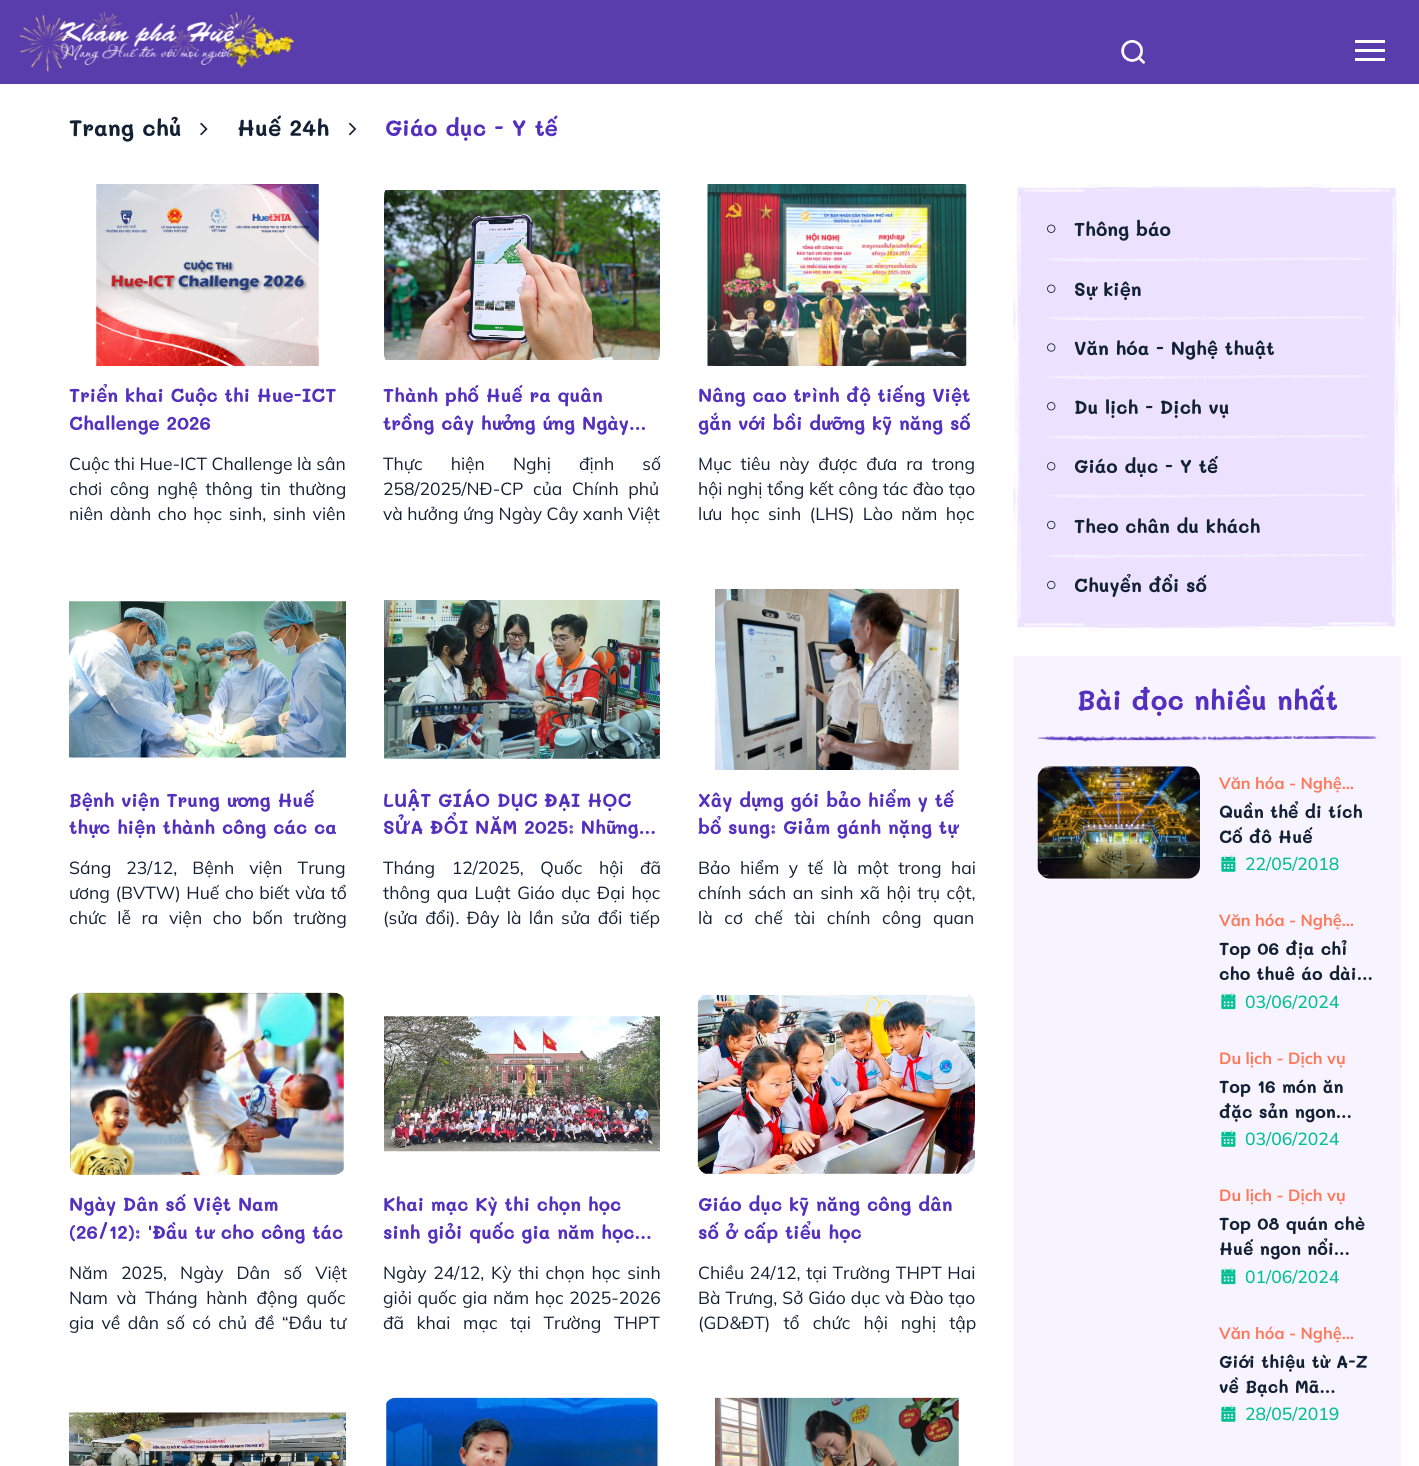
import math
import cairo


def write_spaced(ctx, x, y, s, letter, word):
	ctx.move_to(x, y)
	for ch in s:
		ctx.show_text(ch)
		ctx.rel_move_to(letter + word * (ch == ' '), 0)

def paste(ctx, path, x, y, w, h):
	ctx.save()
	ctx.set_source_surface(cairo.ImageSurface.create_from_png(path), x, y)
	ctx.rectangle(x, y, w, h)
	ctx.fill()
	ctx.restore()

def draw(ctx):
	ctx.set_source_rgb(1, 1, 1)
	ctx.paint()
	ctx.set_source_rgb(0.353, 0.239, 0.675)
	ctx.rectangle(0, 0, 1419, 84)
	ctx.fill()
	paste(ctx, 'media/1.png', 19, 12, 276, 60)
	paste(ctx, 'media/2.png', 1121, 40, 24, 24)
	ctx.set_source_rgb(1, 1, 1)
	ctx.rectangle(1355, 49, 30, 3)
	ctx.rectangle(1355, 40, 30, 3)
	ctx.rectangle(1355, 58, 30, 3)
	ctx.fill()
	ctx.select_font_face('Mali', cairo.FONT_SLANT_NORMAL, cairo.FONT_WEIGHT_BOLD)
	ctx.set_font_size(22.5)
	ctx.set_source_rgb(0.075, 0.129, 0.208)
	ctx.move_to(69, 136)
	ctx.show_text('Trang chủ')
	paste(ctx, 'media/3.png', 200, 122, 8, 14)
	ctx.move_to(237, 136)
	ctx.show_text('Huế 24h')
	paste(ctx, 'media/4.png', 349, 122, 8, 14)
	ctx.set_source_rgb(0.333, 0.188, 0.745)
	ctx.move_to(385, 136)
	ctx.show_text('Giáo dục - Y tế')
	paste(ctx, 'media/5.png', 96, 184, 223, 182)
	ctx.set_font_size(18.75)
	ctx.move_to(69, 402)
	ctx.show_text('Triển khai Cuộc thi Hue-ICT')
	ctx.move_to(69, 430)
	ctx.show_text('Challenge 2026')
	ctx.select_font_face('Mulish')
	ctx.set_font_size(17.5)
	ctx.set_source_rgb(0.075, 0.129, 0.208)
	ctx.move_to(69, 470)
	ctx.show_text('Cuộc thi Hue-ICT Challenge là sân')
	write_spaced(ctx, 69, 495, 'chơi công nghệ thông tin thường', 0, 3.25)
	write_spaced(ctx, 69, 520, 'niên dành cho học sinh, sinh viên', 0, 2)
	paste(ctx, 'media/6.png', 384, 190, 276, 170)
	ctx.select_font_face('Mali', cairo.FONT_SLANT_NORMAL, cairo.FONT_WEIGHT_BOLD)
	ctx.set_font_size(18.75)
	ctx.set_source_rgb(0.333, 0.188, 0.745)
	ctx.move_to(383, 402)
	ctx.show_text('Thành phố Huế ra quân')
	ctx.move_to(383, 430)
	ctx.show_text('trồng cây hưởng ứng Ngày…')
	ctx.select_font_face('Mulish')
	ctx.set_font_size(17.5)
	ctx.set_source_rgb(0.075, 0.129, 0.208)
	write_spaced(ctx, 383, 470, 'Thực hiện Nghị định số', 0, 23.5)
	write_spaced(ctx, 383, 495, '258/2025/NĐ-CP của Chính phủ', 0, 5)
	ctx.move_to(383, 520)
	ctx.show_text('và hưởng ứng Ngày Cây xanh Việt')
	paste(ctx, 'media/7.png', 707, 184, 260, 182)
	ctx.select_font_face('Mali', cairo.FONT_SLANT_NORMAL, cairo.FONT_WEIGHT_BOLD)
	ctx.set_font_size(18.75)
	ctx.set_source_rgb(0.333, 0.188, 0.745)
	ctx.move_to(698, 402)
	ctx.show_text('Nâng cao trình độ tiếng Việt')
	ctx.move_to(698, 430)
	ctx.show_text('gắn với bồi dưỡng kỹ năng số')
	ctx.select_font_face('Mulish')
	ctx.set_font_size(17.5)
	ctx.set_source_rgb(0.075, 0.129, 0.208)
	write_spaced(ctx, 698, 470, 'Mục tiêu này được đưa ra trong', 0, 4.25)
	write_spaced(ctx, 698, 495, 'hội nghị tổng kết công tác đào tạo', 0, 0.25)
	write_spaced(ctx, 698, 520, 'lưu học sinh (LHS) Lào năm học', 0, 3.75)
	paste(ctx, 'media/8.png', 69, 601, 277, 157)
	ctx.select_font_face('Mali', cairo.FONT_SLANT_NORMAL, cairo.FONT_WEIGHT_BOLD)
	ctx.set_font_size(18.75)
	ctx.set_source_rgb(0.333, 0.188, 0.745)
	ctx.move_to(69, 807)
	ctx.show_text('Bệnh viện Trung ương Huế')
	ctx.move_to(69, 834)
	ctx.show_text('thực hiện thành công các ca')
	ctx.select_font_face('Mulish')
	ctx.set_font_size(17.5)
	ctx.set_source_rgb(0.075, 0.129, 0.208)
	write_spaced(ctx, 69, 874, 'Sáng 23/12, Bệnh viện Trung', 0, 10.5)
	write_spaced(ctx, 69, 899, 'ương (BVTW) Huế cho biết vừa tổ', 0, 1)
	write_spaced(ctx, 69, 924, 'chức lễ ra viện cho bốn trường', 0, 6)
	paste(ctx, 'media/9.png', 384, 600, 276, 159)
	ctx.select_font_face('Mali', cairo.FONT_SLANT_NORMAL, cairo.FONT_WEIGHT_BOLD)
	ctx.set_font_size(18.75)
	ctx.set_source_rgb(0.333, 0.188, 0.745)
	ctx.move_to(383, 807)
	ctx.show_text('LUẬT GIÁO DỤC ĐẠI HỌC')
	ctx.move_to(383, 834)
	ctx.show_text('SỬA ĐỔI NĂM 2025: Những…')
	ctx.select_font_face('Mulish')
	ctx.set_font_size(17.5)
	ctx.set_source_rgb(0.075, 0.129, 0.208)
	write_spaced(ctx, 383, 874, 'Tháng 12/2025, Quốc hội đã', 0, 12)
	write_spaced(ctx, 383, 899, 'thông qua Luật Giáo dục Đại học', 0, 2)
	write_spaced(ctx, 383, 924, '(sửa đổi). Đây là lần sửa đổi tiếp', 0, 2.75)
	paste(ctx, 'media/10.png', 715, 589, 244, 181)
	ctx.select_font_face('Mali', cairo.FONT_SLANT_NORMAL, cairo.FONT_WEIGHT_BOLD)
	ctx.set_font_size(18.75)
	ctx.set_source_rgb(0.333, 0.188, 0.745)
	ctx.move_to(698, 807)
	ctx.show_text('Xây dựng gói bảo hiểm y tế')
	ctx.move_to(698, 834)
	ctx.show_text('bổ sung: Giảm gánh nặng tự')
	ctx.select_font_face('Mulish')
	ctx.set_font_size(17.5)
	ctx.set_source_rgb(0.075, 0.129, 0.208)
	write_spaced(ctx, 698, 874, 'Bảo hiểm y tế là một trong hai', 0, 5)
	write_spaced(ctx, 698, 899, 'chính sách an sinh xã hội trụ cột,', 0, 2)
	write_spaced(ctx, 698, 924, 'là cơ chế tài chính công quan', 0, 7)
	paste(ctx, 'media/11.png', 70, 992, 274, 183)
	ctx.select_font_face('Mali', cairo.FONT_SLANT_NORMAL, cairo.FONT_WEIGHT_BOLD)
	ctx.set_font_size(18.75)
	ctx.set_source_rgb(0.333, 0.188, 0.745)
	ctx.move_to(69, 1211)
	ctx.show_text('Ngày Dân số Việt Nam')
	ctx.move_to(69, 1239)
	ctx.show_text('(26/12): \'Đầu tư cho công tác')
	ctx.select_font_face('Mulish')
	ctx.set_font_size(17.5)
	ctx.set_source_rgb(0.075, 0.129, 0.208)
	write_spaced(ctx, 69, 1279, 'Năm 2025, Ngày Dân số Việt', 0, 8.5)
	write_spaced(ctx, 69, 1304, 'Nam và Tháng hành động quốc', 0, 4.25)
	write_spaced(ctx, 69, 1329, 'gia về dân số có chủ đề “Đầu tư', 0, 2.75)
	paste(ctx, 'media/12.png', 384, 1016, 276, 136)
	ctx.select_font_face('Mali', cairo.FONT_SLANT_NORMAL, cairo.FONT_WEIGHT_BOLD)
	ctx.set_font_size(18.75)
	ctx.set_source_rgb(0.333, 0.188, 0.745)
	ctx.move_to(383, 1211)
	ctx.show_text('Khai mạc Kỳ thi chọn học')
	ctx.move_to(383, 1239)
	ctx.show_text('sinh giỏi quốc gia năm học…')
	ctx.select_font_face('Mulish')
	ctx.set_font_size(17.5)
	ctx.set_source_rgb(0.075, 0.129, 0.208)
	write_spaced(ctx, 383, 1279, 'Ngày 24/12, Kỳ thi chọn học sinh', 0, 2.25)
	write_spaced(ctx, 383, 1304, 'giỏi quốc gia năm học 2025-2026', 0, 1)
	write_spaced(ctx, 383, 1329, 'đã khai mạc tại Trường THPT', 0, 8)
	paste(ctx, 'media/13.png', 697, 995, 278, 179)
	ctx.select_font_face('Mali', cairo.FONT_SLANT_NORMAL, cairo.FONT_WEIGHT_BOLD)
	ctx.set_font_size(18.75)
	ctx.set_source_rgb(0.333, 0.188, 0.745)
	ctx.move_to(698, 1211)
	ctx.show_text('Giáo dục kỹ năng công dân')
	ctx.move_to(698, 1239)
	ctx.show_text('số ở cấp tiểu học')
	ctx.select_font_face('Mulish')
	ctx.set_font_size(17.5)
	ctx.set_source_rgb(0.075, 0.129, 0.208)
	write_spaced(ctx, 698, 1279, 'Chiều 24/12, tại Trường THPT Hai', 0, 1)
	write_spaced(ctx, 698, 1304, 'Bà Trưng, Sở Giáo dục và Đào tạo', 0, 0.5)
	write_spaced(ctx, 698, 1329, '(GD&ĐT) tổ chức hội nghị tập', 0, 8.5)
	paste(ctx, 'media/14.png', 69, 1412, 277, 54)
	paste(ctx, 'media/15.png', 386, 1397, 272, 69)
	paste(ctx, 'media/16.png', 715, 1397, 244, 69)
	paste(ctx, 'media/17.png', 1013, 184, 388, 447)
	paste(ctx, 'media/18.png', 1047, 224, 9, 9)
	ctx.select_font_face('Mali', cairo.FONT_SLANT_NORMAL, cairo.FONT_WEIGHT_BOLD)
	ctx.set_font_size(18.75)
	ctx.move_to(1074, 236)
	ctx.show_text('Thông báo')
	paste(ctx, 'media/19.png', 1047, 257, 320, 5)
	paste(ctx, 'media/18.png', 1047, 284, 9, 9)
	ctx.move_to(1074, 296)
	ctx.show_text('Sự kiện')
	paste(ctx, 'media/20.png', 1047, 316, 320, 5)
	paste(ctx, 'media/21.png', 1047, 343, 9, 9)
	ctx.move_to(1074, 355)
	ctx.show_text('Văn hóa - Nghệ thuật')
	paste(ctx, 'media/22.png', 1047, 375, 320, 5)
	paste(ctx, 'media/23.png', 1047, 402, 9, 9)
	ctx.move_to(1074, 414)
	ctx.show_text('Du lịch - Dịch vụ')
	paste(ctx, 'media/22.png', 1047, 435, 320, 5)
	paste(ctx, 'media/23.png', 1047, 462, 9, 9)
	ctx.move_to(1074, 473)
	ctx.show_text('Giáo dục - Y tế')
	paste(ctx, 'media/24.png', 1047, 494, 320, 5)
	paste(ctx, 'media/25.png', 1047, 520, 9, 10)
	ctx.move_to(1074, 533)
	ctx.show_text('Theo chân du khách')
	paste(ctx, 'media/24.png', 1047, 554, 320, 5)
	paste(ctx, 'media/25.png', 1047, 580, 9, 10)
	ctx.move_to(1074, 592)
	ctx.show_text('Chuyển đổi số')
	ctx.set_source_rgb(0.965, 0.953, 1)
	ctx.rectangle(1013, 656, 388, 810)
	ctx.fill()
	ctx.set_font_size(27.5)
	ctx.set_source_rgb(0.333, 0.188, 0.745)
	ctx.move_to(1077, 710)
	ctx.show_text('Bài đọc nhiều nhất')
	paste(ctx, 'media/26.png', 1037, 736, 340, 6)
	paste(ctx, 'media/27.png', 1037, 766, 163, 113)
	ctx.select_font_face('Mulish', cairo.FONT_SLANT_NORMAL, cairo.FONT_WEIGHT_BOLD)
	ctx.set_font_size(16.25)
	ctx.set_source_rgb(1, 0.467, 0.341)
	ctx.move_to(1219, 789)
	ctx.show_text('Văn hóa - Nghệ…')
	ctx.select_font_face('Mali', cairo.FONT_SLANT_NORMAL, cairo.FONT_WEIGHT_BOLD)
	ctx.set_font_size(17.5)
	ctx.set_source_rgb(0.075, 0.129, 0.208)
	ctx.move_to(1219, 818)
	ctx.show_text('Quần thể di tích')
	ctx.move_to(1219, 843)
	ctx.show_text('Cố đô Huế')
	paste(ctx, 'media/28.png', 1221, 855, 15, 17)
	ctx.select_font_face('Mulish Medium')
	ctx.set_source_rgb(0, 0.749, 0.569)
	ctx.move_to(1245, 870)
	ctx.show_text('22/05/2018')
	ctx.select_font_face('Mulish', cairo.FONT_SLANT_NORMAL, cairo.FONT_WEIGHT_BOLD)
	ctx.set_font_size(16.25)
	ctx.set_source_rgb(1, 0.467, 0.341)
	ctx.move_to(1219, 926)
	ctx.show_text('Văn hóa - Nghệ…')
	ctx.select_font_face('Mali', cairo.FONT_SLANT_NORMAL, cairo.FONT_WEIGHT_BOLD)
	ctx.set_font_size(17.5)
	ctx.set_source_rgb(0.075, 0.129, 0.208)
	ctx.move_to(1219, 955)
	ctx.show_text('Top 06 địa chỉ')
	ctx.move_to(1219, 980)
	ctx.show_text('cho thuê áo dài…')
	paste(ctx, 'media/29.png', 1221, 992, 15, 18)
	ctx.select_font_face('Mulish Medium')
	ctx.set_source_rgb(0, 0.749, 0.569)
	ctx.move_to(1245, 1008)
	ctx.show_text('03/06/2024')
	ctx.select_font_face('Mulish', cairo.FONT_SLANT_NORMAL, cairo.FONT_WEIGHT_BOLD)
	ctx.set_font_size(16.25)
	ctx.set_source_rgb(1, 0.467, 0.341)
	ctx.move_to(1219, 1064)
	ctx.show_text('Du lịch - Dịch vụ')
	ctx.select_font_face('Mali', cairo.FONT_SLANT_NORMAL, cairo.FONT_WEIGHT_BOLD)
	ctx.set_font_size(17.5)
	ctx.set_source_rgb(0.075, 0.129, 0.208)
	ctx.move_to(1219, 1093)
	ctx.show_text('Top 16 món ăn')
	ctx.move_to(1219, 1118)
	ctx.show_text('đặc sản ngon…')
	paste(ctx, 'media/28.png', 1221, 1130, 15, 17)
	ctx.select_font_face('Mulish Medium')
	ctx.set_source_rgb(0, 0.749, 0.569)
	ctx.move_to(1245, 1145)
	ctx.show_text('03/06/2024')
	ctx.select_font_face('Mulish', cairo.FONT_SLANT_NORMAL, cairo.FONT_WEIGHT_BOLD)
	ctx.set_font_size(16.25)
	ctx.set_source_rgb(1, 0.467, 0.341)
	ctx.move_to(1219, 1201)
	ctx.show_text('Du lịch - Dịch vụ')
	ctx.select_font_face('Mali', cairo.FONT_SLANT_NORMAL, cairo.FONT_WEIGHT_BOLD)
	ctx.set_font_size(17.5)
	ctx.set_source_rgb(0.075, 0.129, 0.208)
	ctx.move_to(1219, 1230)
	ctx.show_text('Top 08 quán chè')
	ctx.move_to(1219, 1255)
	ctx.show_text('Huế ngon nổi…')
	paste(ctx, 'media/29.png', 1221, 1267, 15, 18)
	ctx.select_font_face('Mulish Medium')
	ctx.set_source_rgb(0, 0.749, 0.569)
	ctx.move_to(1245, 1283)
	ctx.show_text('01/06/2024')
	ctx.select_font_face('Mulish', cairo.FONT_SLANT_NORMAL, cairo.FONT_WEIGHT_BOLD)
	ctx.set_font_size(16.25)
	ctx.set_source_rgb(1, 0.467, 0.341)
	ctx.move_to(1219, 1339)
	ctx.show_text('Văn hóa - Nghệ…')
	ctx.select_font_face('Mali', cairo.FONT_SLANT_NORMAL, cairo.FONT_WEIGHT_BOLD)
	ctx.set_font_size(17.5)
	ctx.set_source_rgb(0.075, 0.129, 0.208)
	ctx.move_to(1219, 1368)
	ctx.show_text('Giới thiệu từ A-Z')
	ctx.move_to(1219, 1393)
	ctx.show_text('về Bạch Mã…')
	paste(ctx, 'media/28.png', 1221, 1405, 15, 17)
	ctx.select_font_face('Mulish Medium')
	ctx.set_source_rgb(0, 0.749, 0.569)
	ctx.move_to(1245, 1420)
	ctx.show_text('28/05/2019')


surface = cairo.ImageSurface(cairo.FORMAT_RGB24, 1419, 1466)
ctx = cairo.Context(surface)
options = cairo.FontOptions()
options.set_hint_metrics(cairo.HINT_METRICS_OFF)
options.set_hint_style(cairo.HINT_STYLE_NONE)
ctx.set_font_options(options)
ctx.set_miter_limit(4)
draw(ctx)
surface.write_to_png('image.png')
